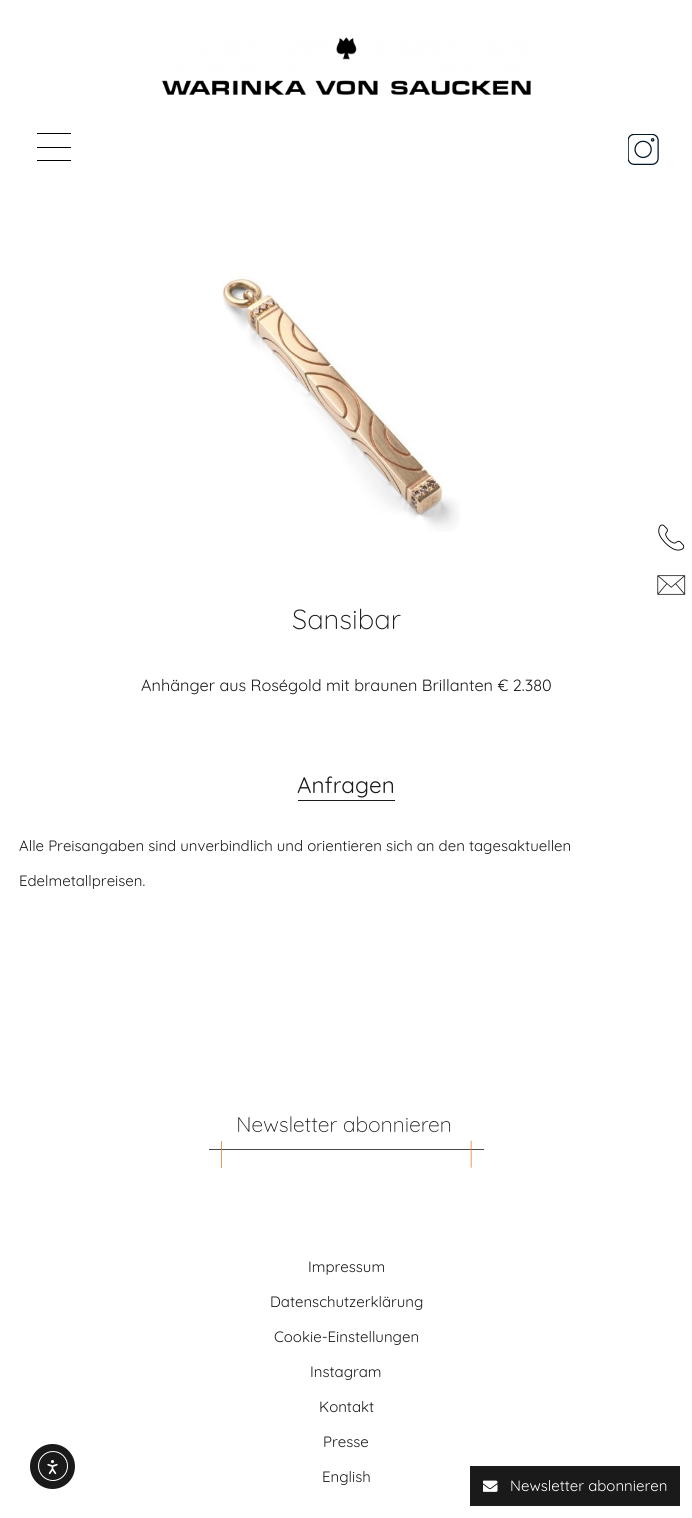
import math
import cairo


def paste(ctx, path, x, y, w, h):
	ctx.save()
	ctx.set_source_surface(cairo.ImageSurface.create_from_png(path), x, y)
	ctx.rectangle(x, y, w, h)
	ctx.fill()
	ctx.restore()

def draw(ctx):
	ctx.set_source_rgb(1, 1, 1)
	ctx.paint()
	paste(ctx, 'media/1.png', 162, 37, 369, 58)
	ctx.set_source_rgb(0, 0, 0)
	ctx.rectangle(37, 133, 34, 1)
	ctx.rectangle(37, 147, 34, 1)
	ctx.rectangle(37, 160, 34, 1)
	ctx.fill()
	paste(ctx, 'media/2.png', 628, 134, 31, 31)
	paste(ctx, 'media/3.png', 222, 273, 238, 259)
	ctx.select_font_face('Quicksand Light')
	ctx.set_font_size(27.5)
	ctx.set_source_rgb(0.102, 0.102, 0.102)
	ctx.move_to(292, 629)
	ctx.show_text('Sansibar')
	ctx.select_font_face('Quicksand')
	ctx.set_font_size(16.25)
	ctx.move_to(141, 691)
	ctx.show_text('Anhänger aus Roségold mit braunen Brillanten € 2.380')
	ctx.rectangle(298, 800, 97, 1)
	ctx.fill()
	ctx.set_font_size(22.5)
	ctx.move_to(297, 793)
	ctx.show_text('Anfragen')
	ctx.set_font_size(15)
	ctx.move_to(19, 851)
	ctx.show_text('Alle Preisangaben sind unverbindlich und orientieren sich an den tagesaktuellen')
	ctx.move_to(19, 886)
	ctx.show_text('Edelmetallpreisen.')
	ctx.new_path()
	ctx.arc(52.5, 1466.5, 22.5, 0, 2 * math.pi)
	ctx.fill()
	ctx.arc(53, 1466, 14.5, 0, 2 * math.pi)
	ctx.set_source_rgb(1, 1, 1)
	ctx.set_line_width(1)
	ctx.stroke()
	paste(ctx, 'media/4.png', 47, 1460, 11, 15)
	paste(ctx, 'media/5.png', 658, 524, 27, 27)
	paste(ctx, 'media/6.png', 657, 575, 29, 20)
	paste(ctx, 'media/7.png', 209, 1116, 275, 52)
	ctx.set_source_rgb(0.102, 0.102, 0.102)
	for x, y, s in [
		(308, 1272, 'Impressum'),
		(270, 1307, 'Datenschutzerklärung'),
		(274, 1342, 'Cookie-Einstellungen'),
		(310, 1377, 'Instagram'),
		(319, 1412, 'Kontakt'),
		(323, 1447, 'Presse'),
		(322, 1482, 'English'),
	]:
		ctx.move_to(x, y)
		ctx.show_text(s)
	ctx.rectangle(470, 1466, 210, 40)
	ctx.fill()
	paste(ctx, 'media/8.png', 483, 1480, 15, 12)
	ctx.set_source_rgb(1, 1, 1)
	ctx.move_to(510, 1491)
	ctx.show_text('Newsletter abonnieren')


surface = cairo.ImageSurface(cairo.FORMAT_RGB24, 692, 1518)
ctx = cairo.Context(surface)
options = cairo.FontOptions()
options.set_hint_metrics(cairo.HINT_METRICS_OFF)
options.set_hint_style(cairo.HINT_STYLE_NONE)
ctx.set_font_options(options)
ctx.set_miter_limit(4)
draw(ctx)
surface.write_to_png('image.png')
